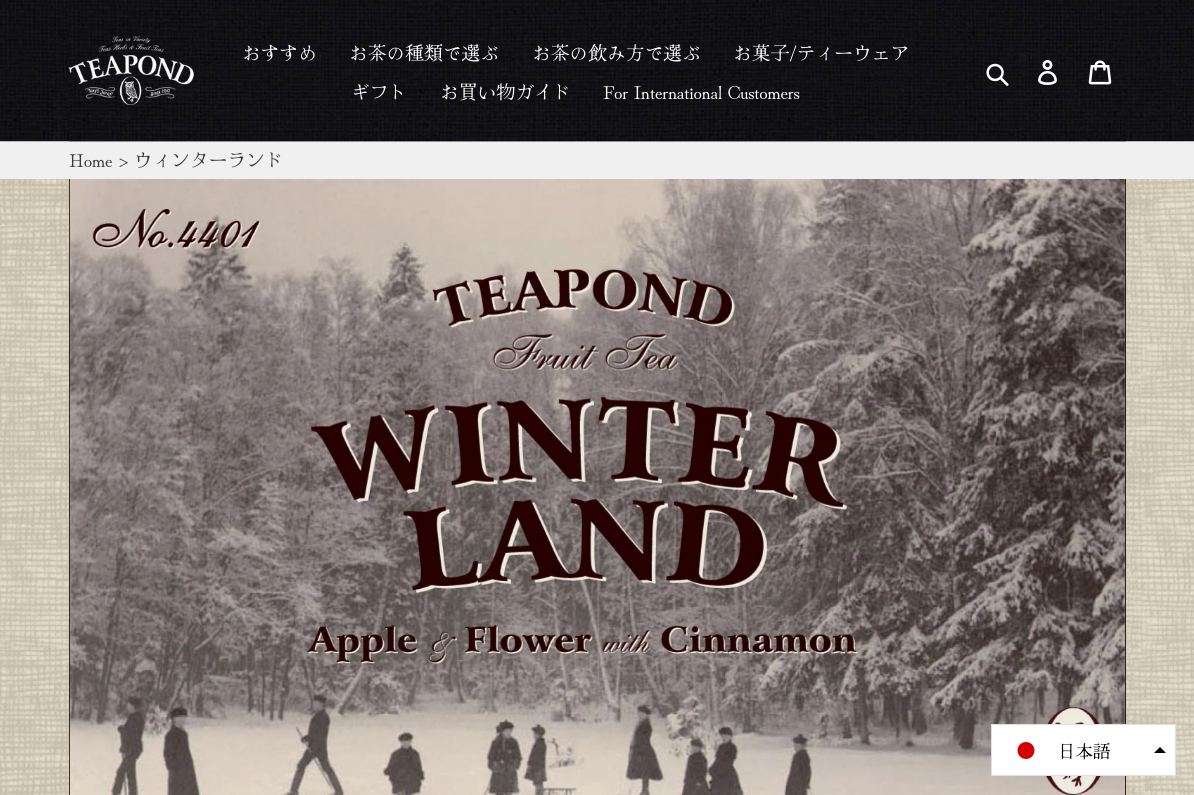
import math
import cairo


def paste(ctx, path, x, y, w, h):
	ctx.save()
	ctx.set_source_surface(cairo.ImageSurface.create_from_png(path), x, y)
	ctx.rectangle(x, y, w, h)
	ctx.fill()
	ctx.restore()

def draw(ctx):
	ctx.set_source_rgb(1, 1, 1)
	ctx.paint()
	ctx.set_source_rgb(0.941, 0.941, 0.941)
	ctx.rectangle(0, 141, 1194, 38)
	ctx.fill()
	paste(ctx, 'media/1.png', 0, 0, 1194, 142)
	paste(ctx, 'media/2.png', 68, 0, 1059, 142)
	paste(ctx, 'media/3.png', 68, 36, 126, 69)
	ctx.select_font_face('Hina Mincho')
	ctx.set_font_size(18.75)
	ctx.set_source_rgb(1, 1, 1)
	for x, y, s in [
		(242, 60, 'おすすめ'),
		(349, 60, 'お茶の種類で選ぶ'),
		(532, 60, 'お茶の飲み方で選ぶ'),
		(733, 60, 'お菓子/ティーウェア'),
		(351, 99, 'ギフト'),
		(440, 99, 'お買い物ガイド'),
		(603, 99, 'For International Customers'),
	]:
		ctx.move_to(x, y)
		ctx.show_text(s)
	paste(ctx, 'media/4.png', 986, 63, 23, 23)
	paste(ctx, 'media/5.png', 1038, 60, 19, 25)
	paste(ctx, 'media/6.png', 1088, 60, 24, 25)
	paste(ctx, 'media/7.png', 0, 179, 1194, 616)
	ctx.set_source_rgb(0.227, 0.227, 0.227)
	ctx.move_to(69, 167)
	ctx.show_text('Home > ウィンターランド')
	ctx.set_source_rgb(0.18, 0.102, 0.082)
	ctx.rectangle(69, 179, 1, 616)
	ctx.fill()
	ctx.rectangle(1125, 179, 1, 616)
	ctx.fill()
	paste(ctx, 'media/8.png', 69, 179, 1057, 616)
	ctx.set_source_rgb(1, 1, 1)
	ctx.rectangle(991.5, 724.5, 184, 51)
	ctx.fill_preserve()
	ctx.set_source_rgb(0.878, 0.878, 0.878)
	ctx.set_line_width(1)
	ctx.stroke()
	ctx.set_source_rgb(0.827, 0, 0)
	ctx.arc(1026, 750.5, 8.5, 0, 2 * math.pi)
	ctx.fill()
	ctx.set_font_size(17.5)
	ctx.set_source_rgb(0, 0, 0)
	ctx.move_to(1058, 758)
	ctx.show_text('日本語')
	ctx.set_fill_rule(cairo.FILL_RULE_EVEN_ODD)
	ctx.new_path()
	ctx.move_to(1154, 753)
	ctx.line_to(1160, 747)
	ctx.line_to(1166, 753)
	ctx.close_path()
	ctx.fill()


surface = cairo.ImageSurface(cairo.FORMAT_RGB24, 1194, 795)
ctx = cairo.Context(surface)
options = cairo.FontOptions()
options.set_hint_metrics(cairo.HINT_METRICS_OFF)
options.set_hint_style(cairo.HINT_STYLE_NONE)
ctx.set_font_options(options)
ctx.set_miter_limit(4)
draw(ctx)
surface.write_to_png('image.png')
